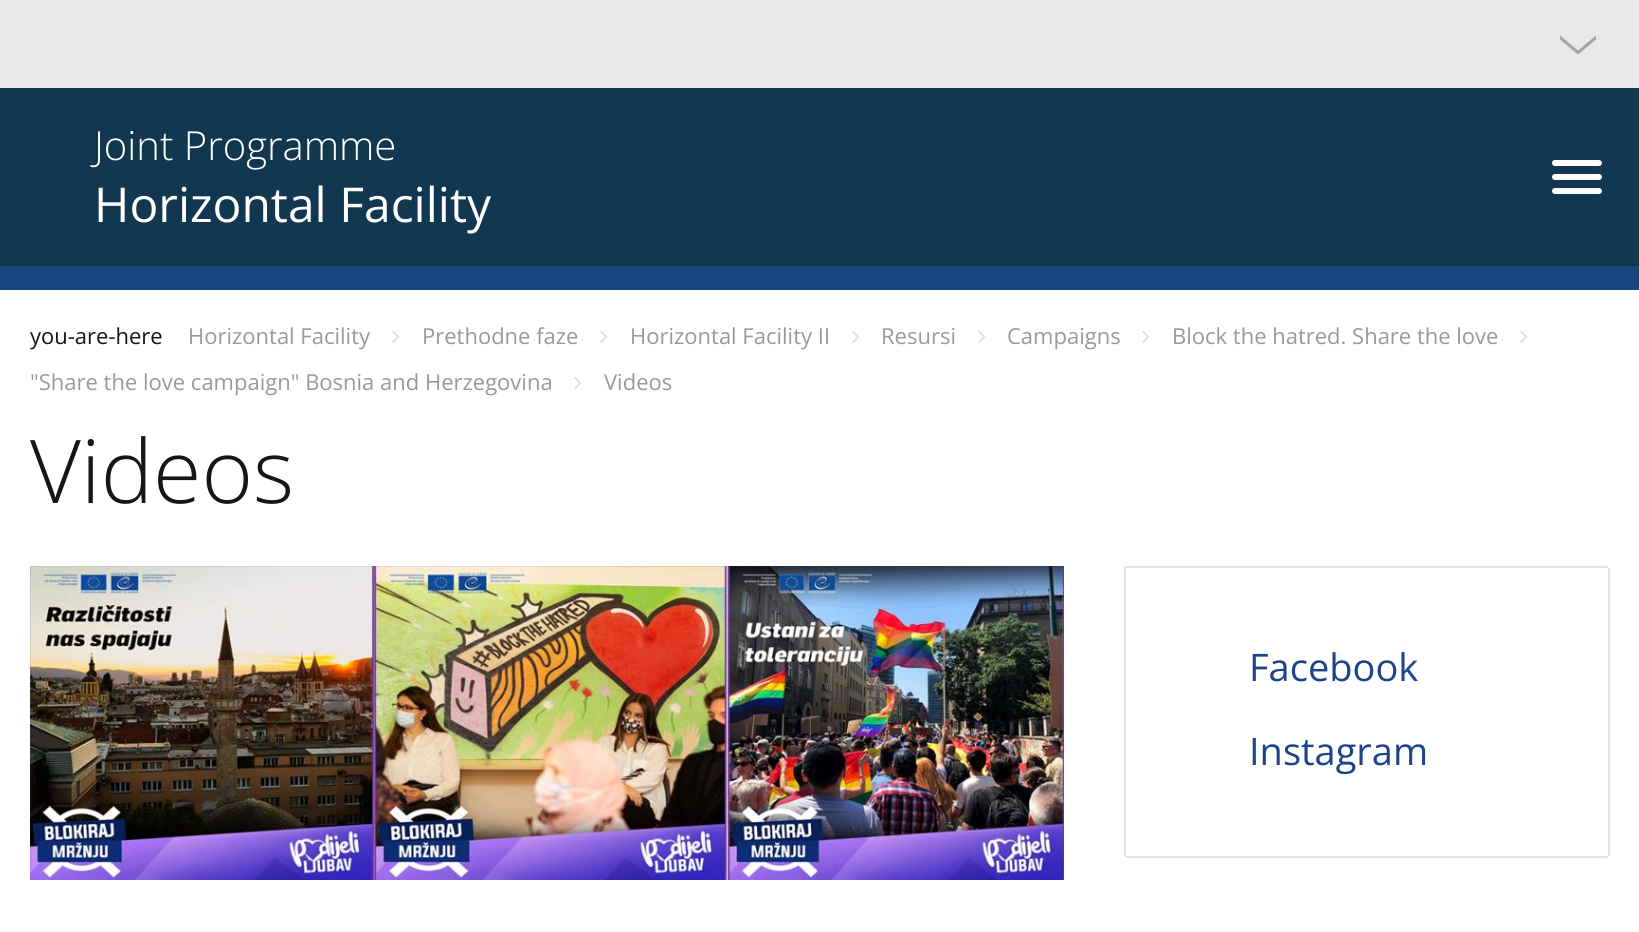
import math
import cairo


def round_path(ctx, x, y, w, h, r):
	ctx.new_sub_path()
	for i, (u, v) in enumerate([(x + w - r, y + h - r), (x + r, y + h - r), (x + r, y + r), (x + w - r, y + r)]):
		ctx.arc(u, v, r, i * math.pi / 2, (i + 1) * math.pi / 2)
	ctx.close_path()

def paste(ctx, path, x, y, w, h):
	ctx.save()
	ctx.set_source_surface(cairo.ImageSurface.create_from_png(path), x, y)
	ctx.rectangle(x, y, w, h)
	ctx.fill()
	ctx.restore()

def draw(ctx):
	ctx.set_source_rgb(1, 1, 1)
	ctx.paint()
	ctx.set_source_rgb(0.91, 0.91, 0.91)
	ctx.rectangle(0, 0, 1639, 88)
	ctx.fill()
	ctx.set_source_rgb(0.647, 0.647, 0.647)
	ctx.new_path()
	ctx.move_to(1560, 35.5)
	ctx.line_to(1578, 50.5)
	ctx.line_to(1578, 54.5)
	ctx.line_to(1560, 39.5)
	ctx.close_path()
	ctx.move_to(1578, 50.5)
	ctx.line_to(1596, 35.5)
	ctx.line_to(1596, 39.5)
	ctx.line_to(1578, 54.5)
	ctx.close_path()
	ctx.fill()
	ctx.set_source_rgb(0.071, 0.216, 0.318)
	ctx.rectangle(0, 88, 1639, 178)
	ctx.fill()
	ctx.set_source_rgb(0.09, 0.271, 0.494)
	ctx.rectangle(0, 266, 1639, 24)
	ctx.fill()
	ctx.select_font_face('Open Sans Light')
	ctx.set_font_size(40)
	ctx.set_source_rgb(1, 1, 1)
	ctx.move_to(94, 160)
	ctx.show_text('Joint Programme')
	ctx.select_font_face('Open Sans')
	ctx.set_font_size(48)
	ctx.move_to(94, 222)
	ctx.show_text('Horizontal Facility')
	round_path(ctx, 1552, 160, 50, 6, 3)
	ctx.fill()
	round_path(ctx, 1552, 174, 50, 6, 3)
	ctx.fill()
	round_path(ctx, 1552, 188, 50, 6, 3)
	ctx.fill()
	ctx.set_font_size(22)
	ctx.set_source_rgb(0.086, 0.086, 0.086)
	ctx.move_to(30, 344)
	ctx.show_text('you-are-here')
	ctx.set_source_rgb(0.6, 0.6, 0.6)
	ctx.move_to(188, 344)
	ctx.show_text('Horizontal Facility')
	paste(ctx, 'media/1.png', 392, 331, 7, 12)
	ctx.move_to(422, 344)
	ctx.show_text('Prethodne faze')
	paste(ctx, 'media/1.png', 600, 331, 7, 12)
	ctx.move_to(630, 344)
	ctx.show_text('Horizontal Facility II')
	paste(ctx, 'media/1.png', 852, 331, 7, 12)
	ctx.move_to(881, 344)
	ctx.show_text('Resursi')
	paste(ctx, 'media/1.png', 978, 331, 7, 12)
	ctx.move_to(1007, 344)
	ctx.show_text('Campaigns')
	paste(ctx, 'media/1.png', 1142, 331, 7, 12)
	ctx.move_to(1172, 344)
	ctx.show_text('Block the hatred. Share the love')
	paste(ctx, 'media/1.png', 1520, 331, 7, 12)
	ctx.move_to(30, 390)
	ctx.show_text('"Share the love campaign" Bosnia and Herzegovina')
	paste(ctx, 'media/1.png', 574, 377, 7, 12)
	ctx.move_to(604, 390)
	ctx.show_text('Videos')
	ctx.select_font_face('Open Sans Light')
	ctx.set_font_size(88)
	ctx.set_source_rgb(0.086, 0.086, 0.086)
	ctx.move_to(30, 503)
	ctx.show_text('Videos')
	paste(ctx, 'media/2.png', 30, 566, 1034, 314)
	ctx.new_path()
	ctx.move_to(1125, 567)
	ctx.line_to(1606, 567)
	ctx.curve_to(1607.5, 567, 1609, 568.5, 1609, 570)
	ctx.line_to(1609, 854)
	ctx.curve_to(1609, 855.5, 1607.5, 857, 1606, 857)
	ctx.line_to(1128, 857)
	ctx.curve_to(1126.5, 857, 1125, 855.5, 1125, 854)
	ctx.close_path()
	ctx.set_source_rgb(0.89, 0.89, 0.89)
	ctx.stroke()
	ctx.select_font_face('Open Sans')
	ctx.set_font_size(38)
	ctx.set_source_rgb(0.114, 0.267, 0.541)
	ctx.move_to(1249, 681)
	ctx.show_text('Facebook')
	ctx.move_to(1249, 765)
	ctx.show_text('Instagram')


surface = cairo.ImageSurface(cairo.FORMAT_RGB24, 1639, 932)
ctx = cairo.Context(surface)
options = cairo.FontOptions()
options.set_hint_metrics(cairo.HINT_METRICS_OFF)
options.set_hint_style(cairo.HINT_STYLE_NONE)
ctx.set_font_options(options)
ctx.set_miter_limit(4)
draw(ctx)
surface.write_to_png('image.png')
